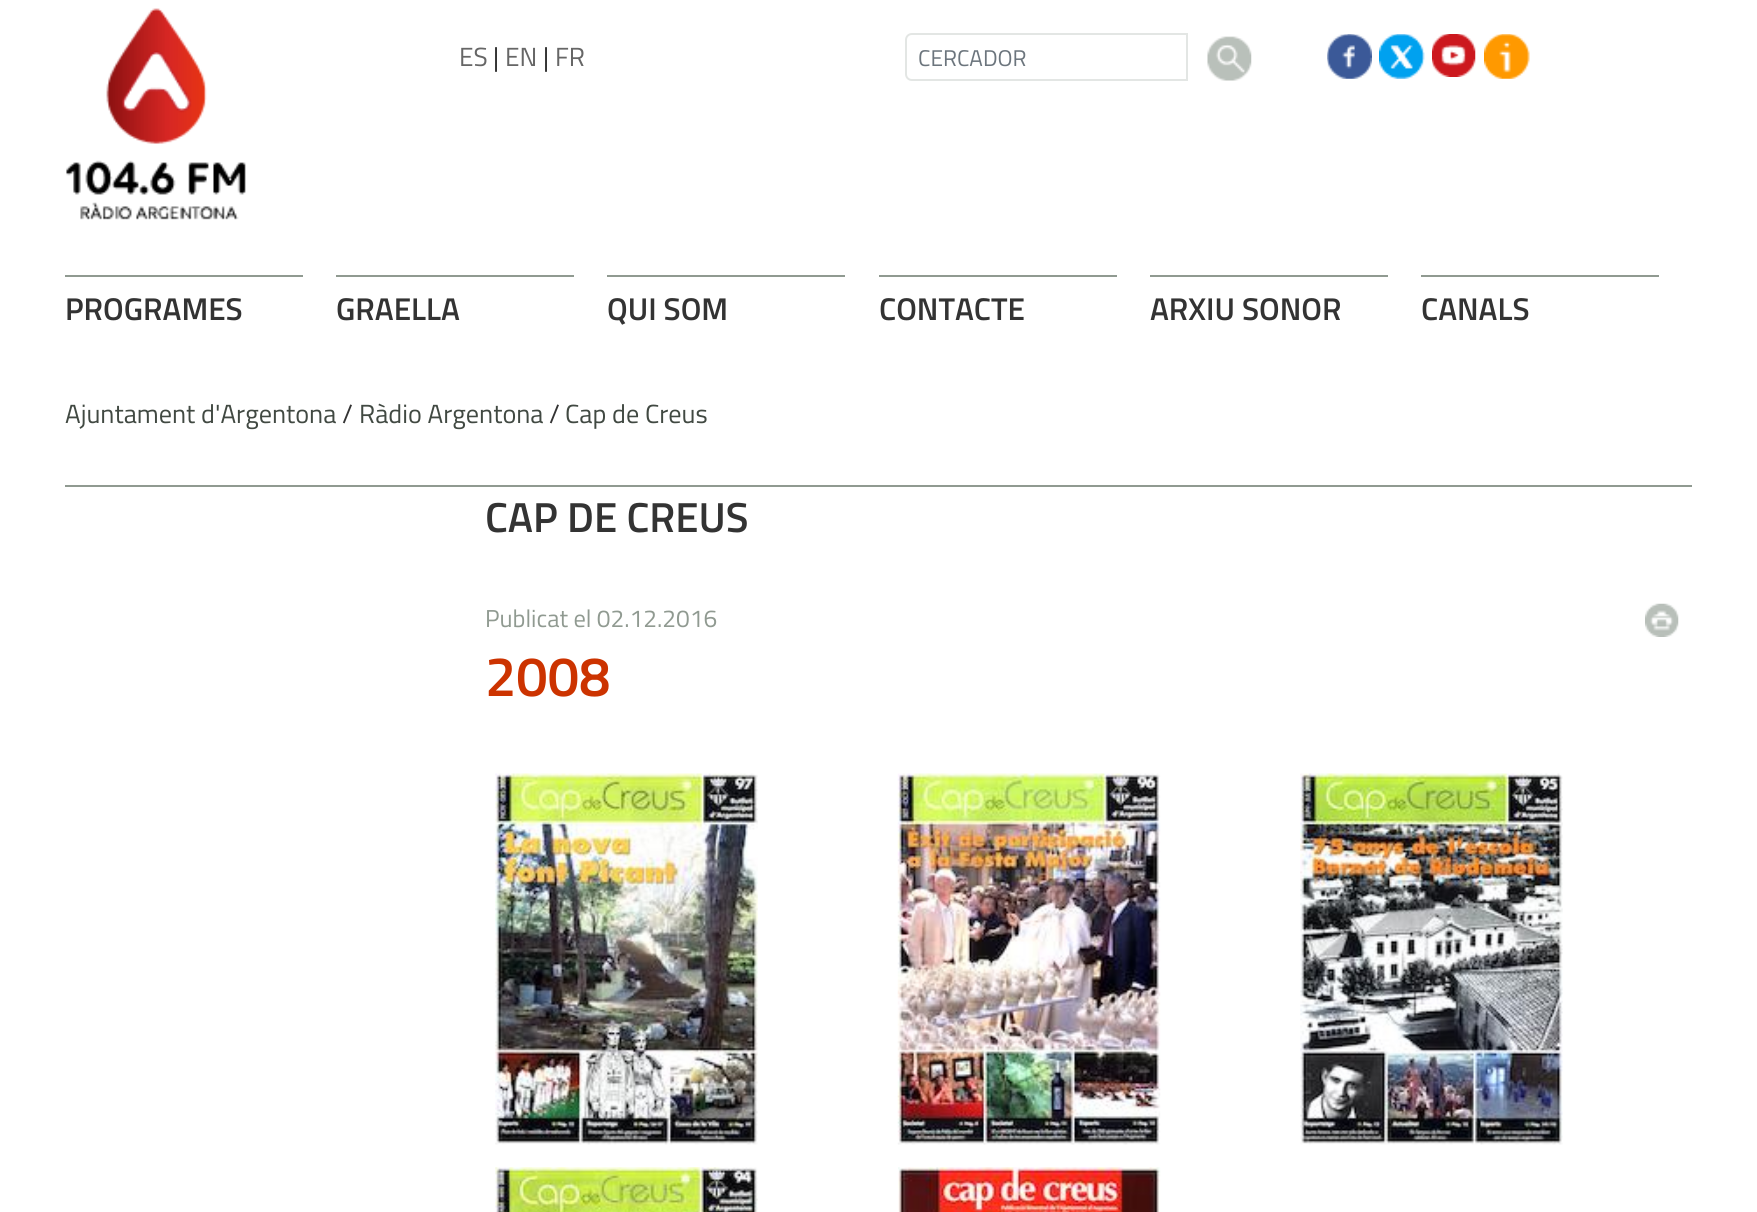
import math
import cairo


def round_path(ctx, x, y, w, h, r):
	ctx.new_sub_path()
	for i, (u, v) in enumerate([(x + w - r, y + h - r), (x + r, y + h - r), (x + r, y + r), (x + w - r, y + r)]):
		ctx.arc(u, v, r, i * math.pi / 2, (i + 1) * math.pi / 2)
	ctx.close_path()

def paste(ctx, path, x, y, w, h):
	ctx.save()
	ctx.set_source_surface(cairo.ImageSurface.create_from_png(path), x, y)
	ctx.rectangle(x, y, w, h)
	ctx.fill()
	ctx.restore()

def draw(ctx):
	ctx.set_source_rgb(1, 1, 1)
	ctx.paint()
	paste(ctx, 'media/1.png', 66, 8, 180, 212)
	ctx.select_font_face('Titillium Web')
	ctx.set_font_size(26.25)
	ctx.set_source_rgb(0.4, 0.4, 0.4)
	ctx.move_to(459, 66)
	ctx.show_text('ES')
	ctx.set_source_rgb(0.2, 0.2, 0.2)
	ctx.move_to(493, 66)
	ctx.show_text('|')
	ctx.set_source_rgb(0.4, 0.4, 0.4)
	ctx.move_to(505, 66)
	ctx.show_text('EN')
	ctx.set_source_rgb(0.2, 0.2, 0.2)
	ctx.move_to(543, 66)
	ctx.show_text('|')
	ctx.set_source_rgb(0.4, 0.4, 0.4)
	ctx.move_to(555, 66)
	ctx.show_text('FR')
	ctx.new_path()
	ctx.move_to(912, 34)
	ctx.line_to(1187, 34)
	ctx.line_to(1187, 80)
	ctx.line_to(912, 80)
	ctx.curve_to(908.5, 80, 906, 77.5, 906, 74)
	ctx.line_to(906, 40)
	ctx.curve_to(906, 36.5, 908.5, 34, 912, 34)
	ctx.close_path()
	ctx.set_source_rgb(0.89, 0.902, 0.894)
	ctx.stroke()
	ctx.set_font_size(22.75)
	ctx.set_source_rgb(0.424, 0.459, 0.49)
	ctx.move_to(918, 66)
	ctx.show_text('CERCADOR')
	paste(ctx, 'media/2.png', 1207, 36, 45, 45)
	paste(ctx, 'media/3.png', 1326, 33, 46, 46)
	round_path(ctx, 1326, 33, 50, 48, 6)
	ctx.set_source_rgb(1, 1, 1)
	ctx.stroke()
	paste(ctx, 'media/4.png', 1379, 33, 46, 46)
	round_path(ctx, 1378, 33, 51, 48, 6)
	ctx.stroke()
	paste(ctx, 'media/5.png', 1432, 34, 44, 43)
	paste(ctx, 'media/6.png', 1484, 34, 46, 45)
	ctx.set_source_rgb(0.565, 0.604, 0.569)
	ctx.rectangle(65, 275, 238, 2)
	ctx.fill()
	ctx.select_font_face('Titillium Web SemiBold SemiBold')
	ctx.set_font_size(31.5)
	ctx.set_source_rgb(0.2, 0.2, 0.2)
	ctx.move_to(65, 320)
	ctx.show_text('PROGRAMES')
	ctx.set_source_rgb(0.565, 0.604, 0.569)
	ctx.rectangle(336, 275, 238, 2)
	ctx.fill()
	ctx.set_source_rgb(0.2, 0.2, 0.2)
	ctx.move_to(336, 320)
	ctx.show_text('GRAELLA')
	ctx.set_source_rgb(0.565, 0.604, 0.569)
	ctx.rectangle(607, 275, 238, 2)
	ctx.fill()
	ctx.set_source_rgb(0.2, 0.2, 0.2)
	ctx.move_to(607, 320)
	ctx.show_text('QUI SOM')
	ctx.set_source_rgb(0.565, 0.604, 0.569)
	ctx.rectangle(879, 275, 238, 2)
	ctx.fill()
	ctx.set_source_rgb(0.2, 0.2, 0.2)
	ctx.move_to(879, 320)
	ctx.show_text('CONTACTE')
	ctx.set_source_rgb(0.565, 0.604, 0.569)
	ctx.rectangle(1150, 275, 238, 2)
	ctx.fill()
	ctx.set_source_rgb(0.2, 0.2, 0.2)
	ctx.move_to(1150, 320)
	ctx.show_text('ARXIU SONOR')
	ctx.set_source_rgb(0.565, 0.604, 0.569)
	ctx.rectangle(1421, 275, 238, 2)
	ctx.fill()
	ctx.set_source_rgb(0.2, 0.2, 0.2)
	ctx.move_to(1421, 320)
	ctx.show_text('CANALS')
	ctx.select_font_face('Titillium Web')
	ctx.set_font_size(26.25)
	ctx.set_source_rgb(0.255, 0.286, 0.259)
	ctx.move_to(65, 423)
	ctx.show_text('Ajuntament d\'Argentona')
	ctx.set_source_rgb(0.2, 0.2, 0.2)
	ctx.move_to(342, 423)
	ctx.show_text('/')
	ctx.set_source_rgb(0.255, 0.286, 0.259)
	ctx.move_to(359, 423)
	ctx.show_text('Ràdio Argentona')
	ctx.set_source_rgb(0.2, 0.2, 0.2)
	ctx.move_to(549, 423)
	ctx.show_text('/')
	ctx.set_source_rgb(0.255, 0.286, 0.259)
	ctx.move_to(565, 423)
	ctx.show_text('Cap de Creus')
	ctx.set_source_rgb(0.565, 0.604, 0.569)
	ctx.rectangle(65, 485, 1627, 2)
	ctx.fill()
	ctx.select_font_face('Titillium Web SemiBold SemiBold')
	ctx.set_font_size(42)
	ctx.set_source_rgb(0.2, 0.2, 0.2)
	ctx.move_to(485, 532)
	ctx.show_text('CAP DE CREUS')
	ctx.select_font_face('Titillium Web')
	ctx.set_font_size(24.5)
	ctx.set_source_rgb(0.565, 0.604, 0.569)
	ctx.move_to(485, 627)
	ctx.show_text('Publicat el 02.12.2016')
	paste(ctx, 'media/7.png', 1645, 603, 34, 34)
	ctx.select_font_face('Titillium Web SemiBold SemiBold')
	ctx.set_font_size(56)
	ctx.set_source_rgb(0.8, 0.2, 0)
	ctx.move_to(485, 696)
	ctx.show_text('2008')
	paste(ctx, 'media/8.png', 495, 773, 263, 372)
	paste(ctx, 'media/9.png', 897, 773, 264, 372)
	paste(ctx, 'media/10.png', 1300, 773, 263, 372)
	paste(ctx, 'media/11.png', 495, 1167, 263, 45)
	paste(ctx, 'media/12.png', 898, 1167, 263, 45)


surface = cairo.ImageSurface(cairo.FORMAT_RGB24, 1757, 1212)
ctx = cairo.Context(surface)
options = cairo.FontOptions()
options.set_hint_metrics(cairo.HINT_METRICS_OFF)
options.set_hint_style(cairo.HINT_STYLE_NONE)
ctx.set_font_options(options)
ctx.set_miter_limit(4)
draw(ctx)
surface.write_to_png('image.png')
